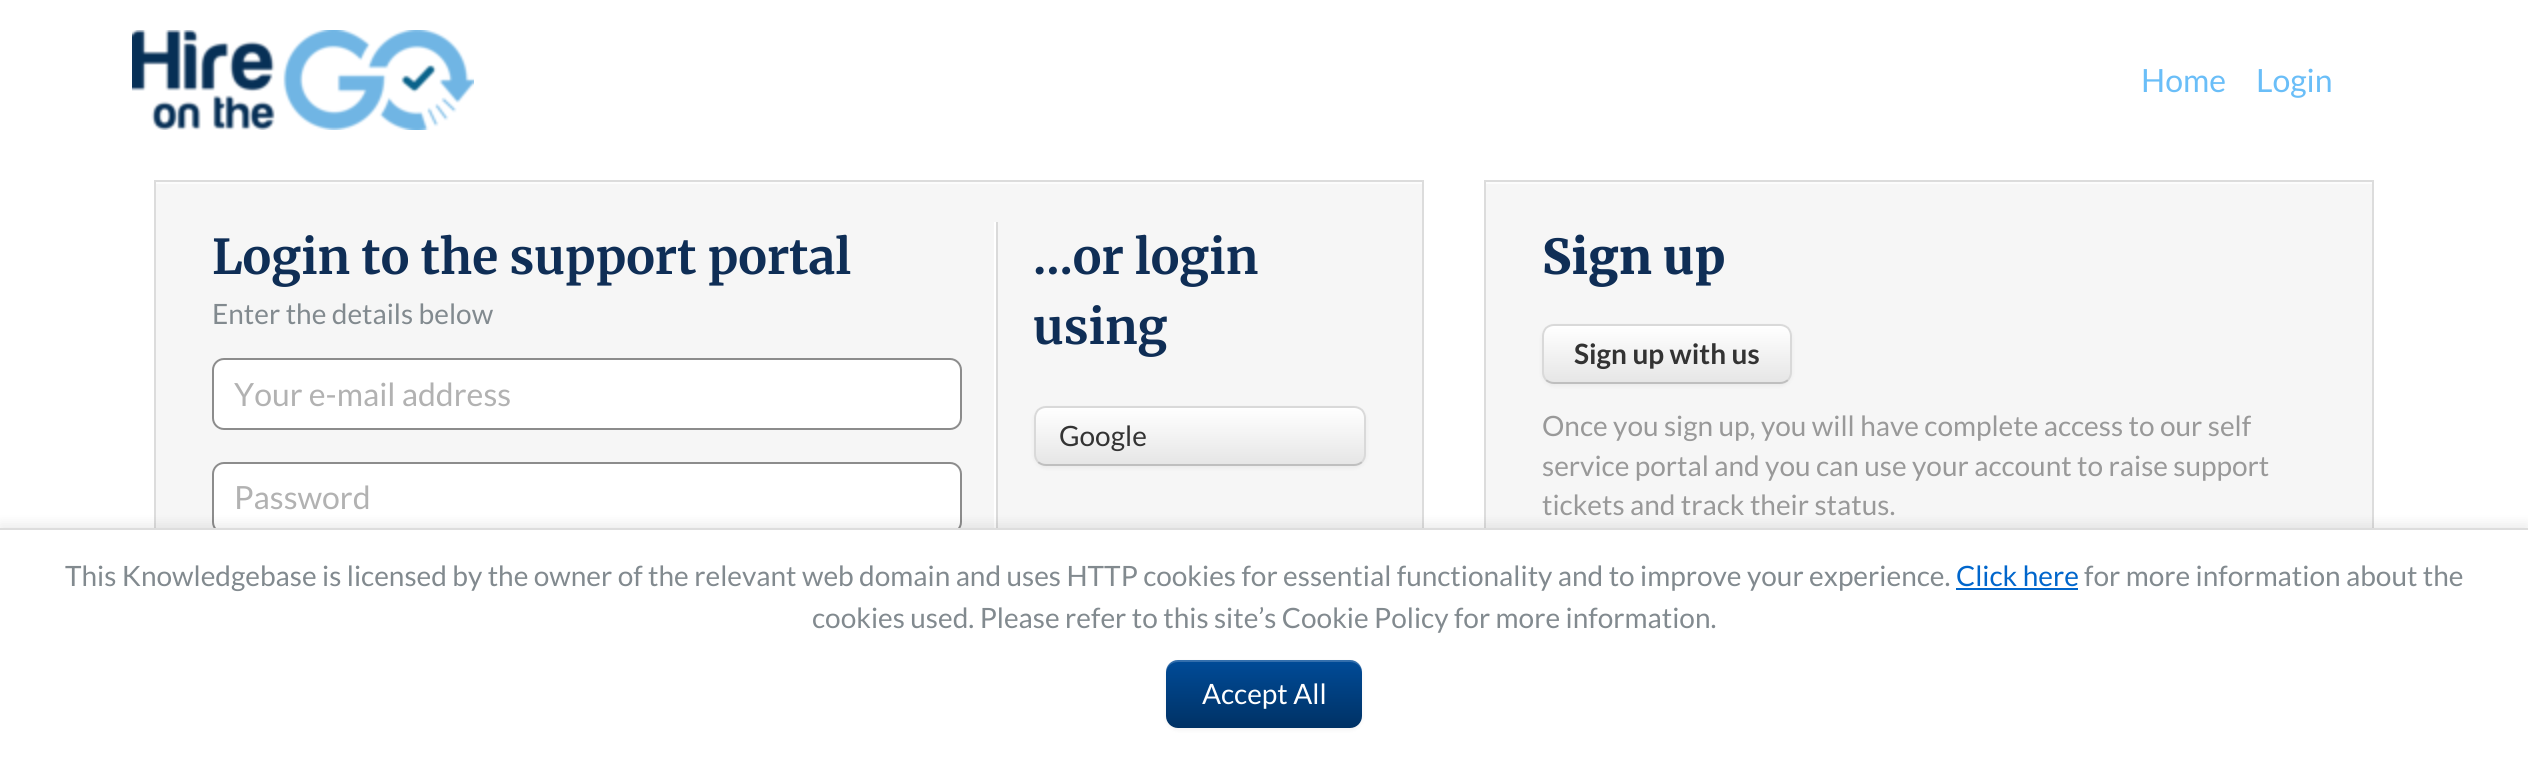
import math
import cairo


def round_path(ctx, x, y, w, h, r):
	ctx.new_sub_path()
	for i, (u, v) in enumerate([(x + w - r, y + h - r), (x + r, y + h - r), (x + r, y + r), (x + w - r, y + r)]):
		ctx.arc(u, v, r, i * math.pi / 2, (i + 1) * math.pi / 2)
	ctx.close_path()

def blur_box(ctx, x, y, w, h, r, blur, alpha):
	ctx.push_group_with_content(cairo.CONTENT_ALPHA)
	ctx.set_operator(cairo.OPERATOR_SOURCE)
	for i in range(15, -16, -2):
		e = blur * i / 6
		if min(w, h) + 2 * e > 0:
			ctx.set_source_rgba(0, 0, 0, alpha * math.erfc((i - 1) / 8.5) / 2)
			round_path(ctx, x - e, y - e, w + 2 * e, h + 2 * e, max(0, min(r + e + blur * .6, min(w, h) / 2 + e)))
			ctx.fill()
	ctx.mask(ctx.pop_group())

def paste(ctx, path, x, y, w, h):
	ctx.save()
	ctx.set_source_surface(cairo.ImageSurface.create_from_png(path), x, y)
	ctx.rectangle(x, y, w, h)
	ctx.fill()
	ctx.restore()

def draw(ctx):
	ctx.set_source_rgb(1, 1, 1)
	ctx.paint()
	paste(ctx, 'media/1.png', 132, 30, 342, 100)
	ctx.select_font_face('Lato')
	ctx.set_font_size(32)
	ctx.set_source_rgb(0.416, 0.745, 0.969)
	ctx.move_to(2141, 92)
	ctx.show_text('Home')
	ctx.move_to(2256, 92)
	ctx.show_text('Login')
	ctx.set_source_rgb(0.961, 0.961, 0.961)
	ctx.rectangle(156, 184, 1266, 344)
	ctx.fill()
	ctx.set_source_rgb(0.988, 0.988, 0.988)
	ctx.rectangle(156, 182, 1266, 2)
	ctx.fill()
	ctx.rectangle(155, 181, 1268, 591)
	ctx.set_source_rgb(0.863, 0.863, 0.863)
	ctx.stroke()
	ctx.select_font_face('Merriweather', cairo.FONT_SLANT_NORMAL, cairo.FONT_WEIGHT_BOLD)
	ctx.set_font_size(48)
	ctx.set_source_rgb(0.059, 0.18, 0.337)
	ctx.move_to(212, 274)
	ctx.show_text('Login to the support portal')
	ctx.select_font_face('Lato')
	ctx.set_font_size(28)
	ctx.set_source_rgb(0.51, 0.541, 0.561)
	ctx.move_to(212, 324)
	ctx.show_text('Enter the details below')
	ctx.set_source_rgb(1, 1, 1)
	round_path(ctx, 213, 359, 748, 70, 11)
	ctx.fill_preserve()
	ctx.set_source_rgb(0.549, 0.549, 0.549)
	ctx.stroke()
	ctx.set_font_size(32)
	ctx.set_source_rgb(0.698, 0.698, 0.698)
	ctx.move_to(234, 406)
	ctx.show_text('Your e-mail address')
	ctx.set_source_rgb(1, 1, 1)
	round_path(ctx, 213, 463, 748, 70, 11)
	ctx.fill_preserve()
	ctx.set_source_rgb(0.549, 0.549, 0.549)
	ctx.stroke()
	ctx.set_source_rgb(0.698, 0.698, 0.698)
	ctx.move_to(234, 509)
	ctx.show_text('Password')
	ctx.set_source_rgb(1, 1, 1)
	ctx.rectangle(994, 222, 2, 306)
	ctx.fill()
	ctx.set_source_rgb(0.855, 0.855, 0.855)
	ctx.rectangle(996, 222, 2, 306)
	ctx.fill()
	ctx.select_font_face('Merriweather', cairo.FONT_SLANT_NORMAL, cairo.FONT_WEIGHT_BOLD)
	ctx.set_font_size(48)
	ctx.set_source_rgb(0.059, 0.18, 0.337)
	ctx.move_to(1033, 274)
	ctx.show_text('...or login')
	ctx.move_to(1033, 344)
	ctx.show_text('using')
	ctx.set_source_rgb(0, 0, 0)
	blur_box(ctx, 1034, 408, 332, 60, 12, 2, 0.05)
	ctx.save()
	round_path(ctx, 1034, 406, 332, 60, 12)
	ctx.clip()
	gradient = cairo.LinearGradient(1200, 408, 1200, 464)
	gradient.add_color_stop_rgba(0, 1, 1, 1, 1)
	gradient.add_color_stop_rgba(1, 0.902, 0.902, 0.902, 1)
	ctx.set_source(gradient)
	ctx.rectangle(1034, 408, 332, 56)
	ctx.fill()
	ctx.restore()
	ctx.new_path()
	ctx.move_to(1362, 462)
	ctx.curve_to(1359.5, 464, 1357, 465, 1354, 465)
	ctx.line_to(1046, 465)
	ctx.curve_to(1043, 465, 1040.5, 464, 1038, 462)
	ctx.set_source_rgb(0.749, 0.749, 0.749)
	ctx.stroke()
	ctx.new_path()
	ctx.move_to(1038, 462)
	ctx.curve_to(1036, 459.5, 1035, 457, 1035, 454)
	ctx.line_to(1035, 418)
	ctx.curve_to(1035, 415, 1036, 412.5, 1038, 410)
	ctx.curve_to(1040.5, 408, 1043, 407, 1046, 407)
	ctx.line_to(1354, 407)
	ctx.curve_to(1357, 407, 1359.5, 408, 1362, 410)
	ctx.curve_to(1364, 412.5, 1365, 415, 1365, 418)
	ctx.line_to(1365, 454)
	ctx.curve_to(1365, 457, 1364, 459.5, 1362, 462)
	ctx.set_source_rgb(0.851, 0.851, 0.851)
	ctx.stroke()
	ctx.select_font_face('Lato')
	ctx.set_font_size(28)
	ctx.set_source_rgb(0.2, 0.2, 0.2)
	ctx.move_to(1059, 446)
	ctx.show_text('Google')
	ctx.set_source_rgb(0.961, 0.961, 0.961)
	ctx.rectangle(1486, 184, 886, 344)
	ctx.fill()
	ctx.set_source_rgb(0.988, 0.988, 0.988)
	ctx.rectangle(1486, 182, 886, 2)
	ctx.fill()
	ctx.rectangle(1485, 181, 888, 408)
	ctx.set_source_rgb(0.863, 0.863, 0.863)
	ctx.stroke()
	ctx.select_font_face('Merriweather Black')
	ctx.set_font_size(48)
	ctx.set_source_rgb(0.059, 0.18, 0.337)
	ctx.move_to(1542, 274)
	ctx.show_text('Sign up')
	ctx.set_source_rgb(0, 0, 0)
	blur_box(ctx, 1542, 326, 250, 60, 12, 2, 0.05)
	ctx.save()
	round_path(ctx, 1542, 324, 250, 60, 12)
	ctx.clip()
	gradient = cairo.LinearGradient(1667, 326, 1667, 382)
	gradient.add_color_stop_rgba(0, 1, 1, 1, 1)
	gradient.add_color_stop_rgba(1, 0.902, 0.902, 0.902, 1)
	ctx.set_source(gradient)
	ctx.rectangle(1542, 326, 250, 56)
	ctx.fill()
	ctx.restore()
	ctx.new_path()
	ctx.move_to(1788, 380)
	ctx.curve_to(1785.5, 382, 1783, 383, 1780, 383)
	ctx.line_to(1554, 383)
	ctx.curve_to(1551, 383, 1548.5, 382, 1546, 380)
	ctx.set_source_rgb(0.749, 0.749, 0.749)
	ctx.stroke()
	ctx.new_path()
	ctx.move_to(1546, 380)
	ctx.curve_to(1544, 377.5, 1543, 375, 1543, 372)
	ctx.line_to(1543, 336)
	ctx.curve_to(1543, 333, 1544, 330.5, 1546, 328)
	ctx.curve_to(1548.5, 326, 1551, 325, 1554, 325)
	ctx.line_to(1780, 325)
	ctx.curve_to(1783, 325, 1785.5, 326, 1788, 328)
	ctx.curve_to(1790, 330.5, 1791, 333, 1791, 336)
	ctx.line_to(1791, 372)
	ctx.curve_to(1791, 375, 1790, 377.5, 1788, 380)
	ctx.set_source_rgb(0.851, 0.851, 0.851)
	ctx.stroke()
	ctx.select_font_face('Lato', cairo.FONT_SLANT_NORMAL, cairo.FONT_WEIGHT_BOLD)
	ctx.set_font_size(28)
	ctx.set_source_rgb(0.2, 0.2, 0.2)
	ctx.move_to(1574, 364)
	ctx.show_text('Sign up with us')
	ctx.select_font_face('Lato')
	ctx.set_source_rgb(0.6, 0.6, 0.6)
	for x, y, s in [
		(1542, 436, 'Once you sign up, you will have complete access to our self'),
		(1542, 476, 'service portal and you can use your account to raise support'),
		(1542, 515, 'tickets and track their status.'),
	]:
		ctx.move_to(x, y)
		ctx.show_text(s)
	ctx.set_source_rgb(0, 0, 0)
	blur_box(ctx, 0, 524, 2528, 244, 0, 6, 0.08)
	ctx.set_source_rgb(1, 1, 1)
	ctx.rectangle(0, 530, 2528, 241)
	ctx.fill()
	ctx.set_source_rgb(0.867, 0.867, 0.867)
	ctx.rectangle(0, 528, 2528, 2)
	ctx.fill()
	ctx.set_source_rgb(0.51, 0.541, 0.561)
	ctx.move_to(65, 586)
	ctx.show_text('This Knowledgebase is licensed by the owner of the relevant web domain and uses HTTP cookies for essential functionality and to improve your experience.')
	ctx.set_source_rgb(0, 0.4, 0.8)
	ctx.move_to(1956, 586)
	ctx.show_text('Click here')
	ctx.rectangle(1956, 588, 122, 2)
	ctx.fill()
	ctx.set_source_rgb(0.51, 0.541, 0.561)
	ctx.move_to(2084, 586)
	ctx.show_text('for more information about the')
	ctx.move_to(812, 628)
	ctx.show_text('cookies used. Please refer to this site’s Cookie Policy for more information.')
	ctx.set_source_rgb(0, 0, 0)
	blur_box(ctx, 1166, 662, 196, 68, 12, 2, 0.05)
	gradient = cairo.LinearGradient(1264, 660, 1264, 728)
	gradient.add_color_stop_rgba(0, 0, 0.294, 0.596, 1)
	gradient.add_color_stop_rgba(1, 0, 0.196, 0.396, 1)
	ctx.set_source(gradient)
	round_path(ctx, 1166, 660, 196, 68, 12)
	ctx.fill()
	ctx.set_source_rgba(1, 1, 1, 0.2)
	ctx.new_path()
	ctx.move_to(1178, 662)
	ctx.line_to(1350, 662)
	ctx.curve_to(1357, 662, 1362, 667, 1362, 674)
	ctx.line_to(1362, 672)
	ctx.curve_to(1362, 665, 1357, 660, 1350, 660)
	ctx.line_to(1178, 660)
	ctx.curve_to(1171, 660, 1166, 665, 1166, 672)
	ctx.line_to(1166, 674)
	ctx.curve_to(1166, 667, 1171, 662, 1178, 662)
	ctx.close_path()
	ctx.fill()
	ctx.set_source_rgb(1, 1, 1)
	ctx.move_to(1202, 704)
	ctx.show_text('Accept All')


surface = cairo.ImageSurface(cairo.FORMAT_RGB24, 2528, 771)
ctx = cairo.Context(surface)
options = cairo.FontOptions()
options.set_hint_metrics(cairo.HINT_METRICS_OFF)
options.set_hint_style(cairo.HINT_STYLE_NONE)
ctx.set_font_options(options)
ctx.set_miter_limit(4)
draw(ctx)
surface.write_to_png('image.png')
